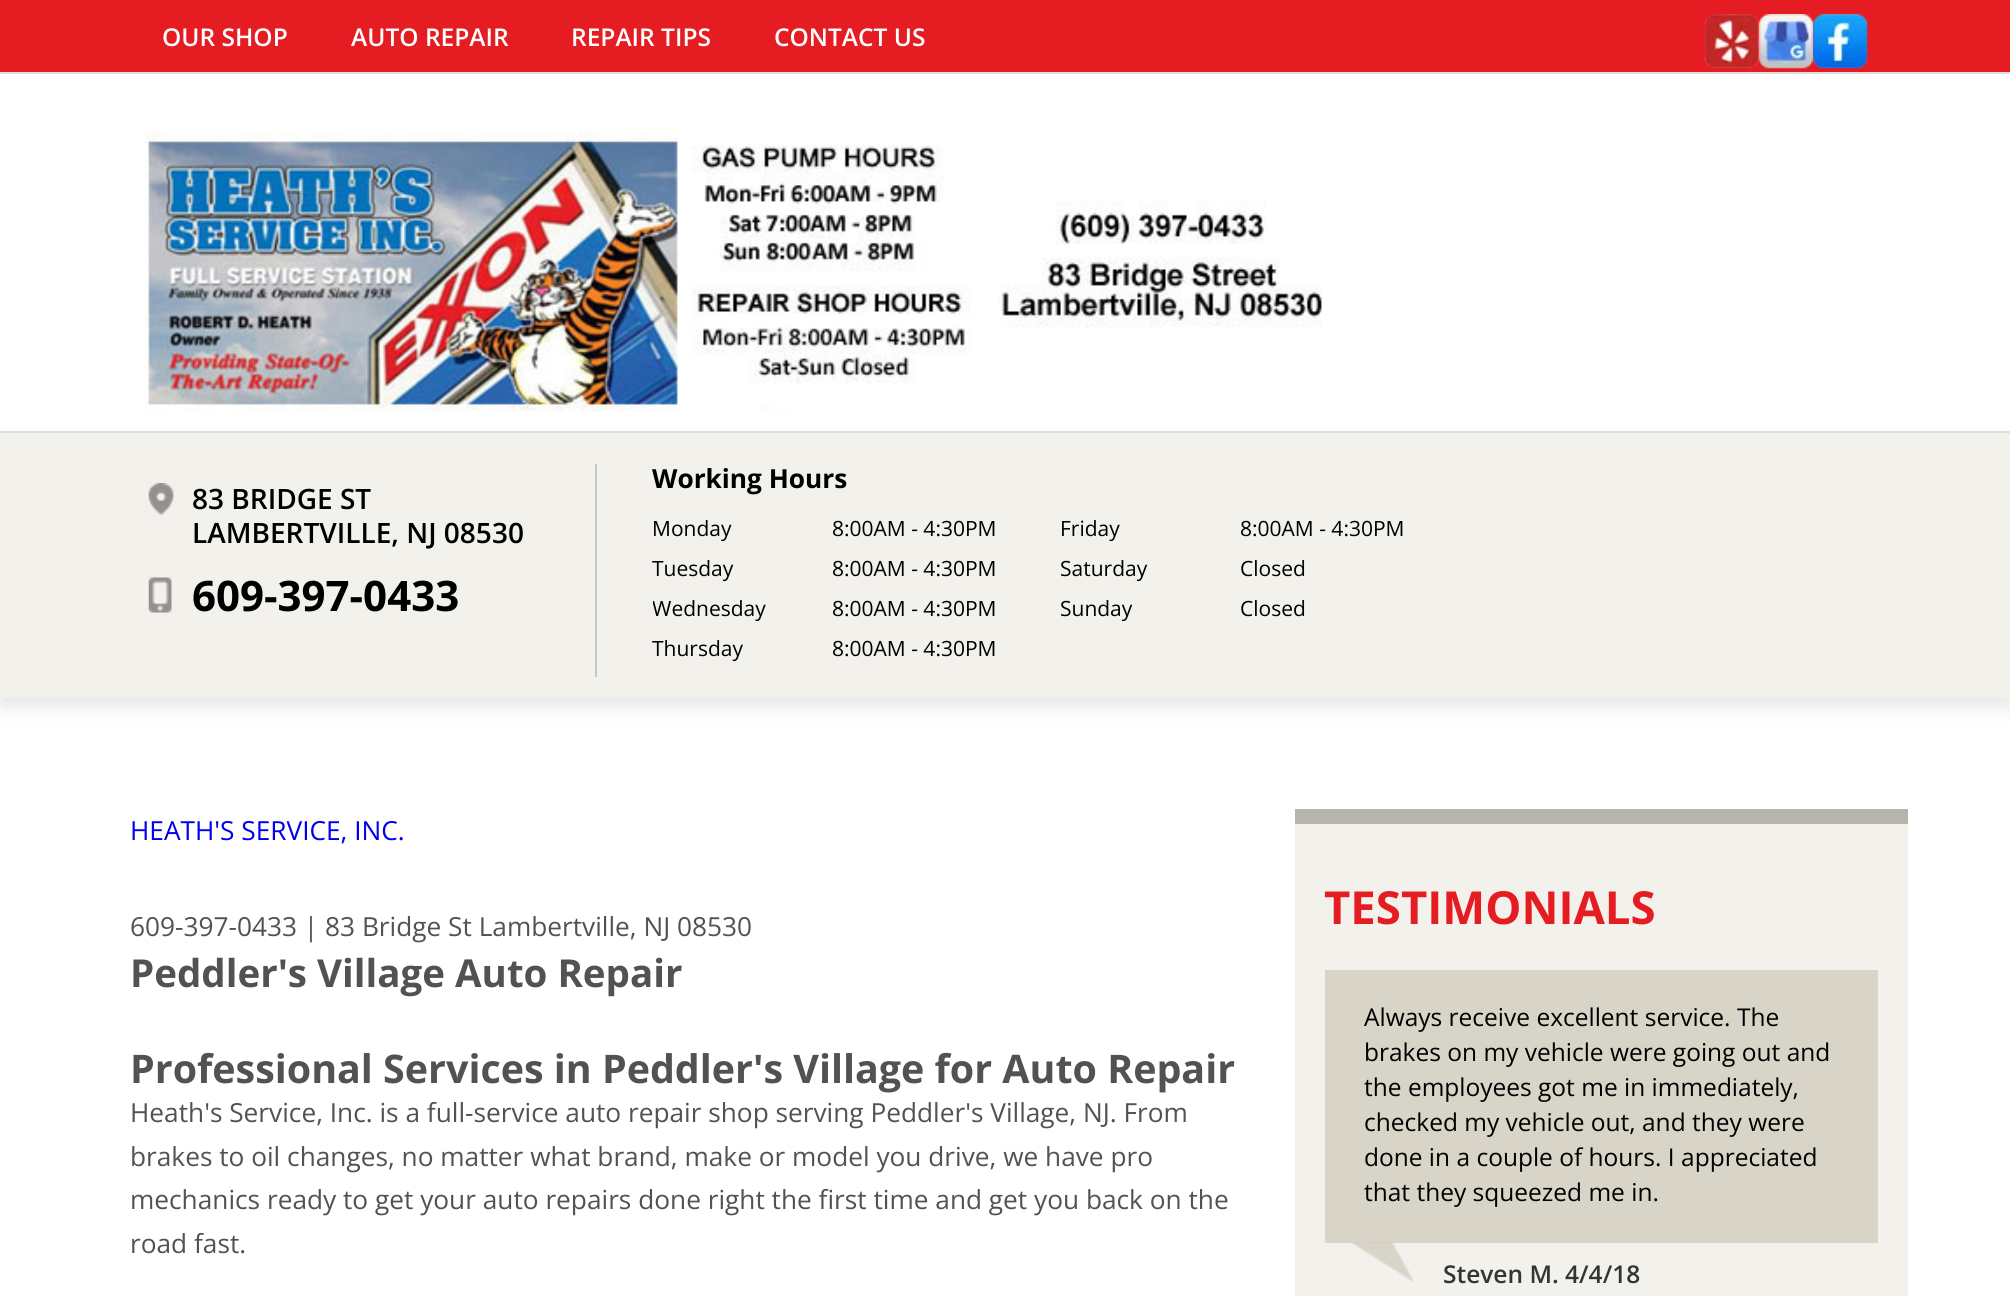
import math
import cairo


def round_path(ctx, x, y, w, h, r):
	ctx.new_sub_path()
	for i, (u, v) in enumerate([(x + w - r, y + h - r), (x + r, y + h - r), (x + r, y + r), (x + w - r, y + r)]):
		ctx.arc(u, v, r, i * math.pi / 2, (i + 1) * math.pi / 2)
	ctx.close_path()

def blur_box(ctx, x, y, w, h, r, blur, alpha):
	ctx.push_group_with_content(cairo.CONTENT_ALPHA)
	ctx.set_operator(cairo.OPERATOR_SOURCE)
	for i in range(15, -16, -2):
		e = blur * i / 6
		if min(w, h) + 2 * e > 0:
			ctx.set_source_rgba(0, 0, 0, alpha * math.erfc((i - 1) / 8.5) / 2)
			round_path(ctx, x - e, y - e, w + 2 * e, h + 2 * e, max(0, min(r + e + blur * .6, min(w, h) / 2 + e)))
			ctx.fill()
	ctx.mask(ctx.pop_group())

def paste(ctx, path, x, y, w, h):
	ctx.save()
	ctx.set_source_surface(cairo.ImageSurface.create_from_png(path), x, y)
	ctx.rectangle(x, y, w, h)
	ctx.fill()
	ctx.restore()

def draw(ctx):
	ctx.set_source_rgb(1, 1, 1)
	ctx.paint()
	ctx.set_source_rgb(0.898, 0.11, 0.133)
	ctx.rectangle(0, 0, 2010, 72)
	ctx.fill()
	ctx.select_font_face('Open Sans SemiBold')
	ctx.set_font_size(24.5)
	ctx.set_source_rgb(1, 1, 1)
	for x, y, s in [
		(162, 46, 'OUR SHOP'),
		(351, 46, 'AUTO REPAIR'),
		(571, 46, 'REPAIR TIPS'),
		(774, 46, 'CONTACT US'),
	]:
		ctx.move_to(x, y)
		ctx.show_text(s)
	paste(ctx, 'media/1.png', 1704, 14, 55, 55)
	paste(ctx, 'media/2.png', 1758, 14, 55, 55)
	paste(ctx, 'media/3.png', 1813, 14, 55, 55)
	ctx.set_source_rgb(0, 0, 0)
	blur_box(ctx, 0, 441, 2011, 266, 0, 9, 0.1)
	ctx.set_source_rgb(1, 1, 1)
	ctx.rectangle(8, 429, 1995, 2)
	ctx.fill()
	ctx.set_source_rgb(0.863, 0.863, 0.863)
	ctx.rectangle(0, 72, 2010, 2)
	ctx.rectangle(0, 431, 2010, 2)
	ctx.fill()
	paste(ctx, 'media/4.png', 145, 131, 1177, 281)
	ctx.set_source_rgb(0.953, 0.945, 0.922)
	ctx.rectangle(0, 433, 2010, 265)
	ctx.fill()
	paste(ctx, 'media/5.png', 148, 483, 26, 32)
	ctx.set_font_size(28)
	ctx.set_source_rgb(0, 0, 0)
	ctx.move_to(192, 509)
	ctx.show_text('83 BRIDGE ST')
	ctx.move_to(192, 543)
	ctx.show_text('LAMBERTVILLE, NJ 08530')
	paste(ctx, 'media/6.png', 148, 577, 24, 36)
	ctx.select_font_face('Open Sans', cairo.FONT_SLANT_NORMAL, cairo.FONT_WEIGHT_BOLD)
	ctx.set_font_size(42)
	ctx.move_to(192, 611)
	ctx.show_text('609-397-0433')
	ctx.set_source_rgb(0.776, 0.776, 0.776)
	ctx.rectangle(595, 464, 2, 213)
	ctx.fill()
	ctx.set_font_size(26.25)
	ctx.set_source_rgb(0, 0, 0)
	ctx.move_to(652, 488)
	ctx.show_text('Working Hours')
	ctx.select_font_face('Open Sans')
	ctx.set_font_size(21)
	for x, y, s in [
		(652, 536, 'Monday'),
		(832, 536, '8:00AM - 4:30PM'),
		(652, 576, 'Tuesday'),
		(832, 576, '8:00AM - 4:30PM'),
	]:
		ctx.move_to(x, y)
		ctx.show_text(s)
	ctx.save()
	ctx.rectangle(653, 597, 343, 40)
	ctx.clip()
	ctx.move_to(652, 616)
	ctx.show_text('Wednesday')
	ctx.restore()
	for x, y, s in [
		(832, 616, '8:00AM - 4:30PM'),
		(652, 656, 'Thursday'),
		(832, 656, '8:00AM - 4:30PM'),
		(1060, 536, 'Friday'),
		(1240, 536, '8:00AM - 4:30PM'),
		(1060, 576, 'Saturday'),
		(1240, 576, 'Closed'),
		(1060, 616, 'Sunday'),
		(1240, 616, 'Closed'),
	]:
		ctx.move_to(x, y)
		ctx.show_text(s)
	ctx.set_font_size(26.25)
	ctx.set_source_rgb(0, 0, 0.933)
	ctx.move_to(130, 840)
	ctx.show_text('HEATH\'S SERVICE, INC.')
	ctx.set_source_rgb(0.322, 0.322, 0.322)
	ctx.move_to(130, 936)
	ctx.show_text('609-397-0433 | 83 Bridge St Lambertville, NJ 08530')
	ctx.select_font_face('Open Sans', cairo.FONT_SLANT_NORMAL, cairo.FONT_WEIGHT_BOLD)
	ctx.set_font_size(38.5)
	ctx.move_to(130, 987)
	ctx.show_text('Peddler\'s Village Auto Repair')
	ctx.set_font_size(39.4)
	ctx.move_to(130, 1083)
	ctx.show_text('Professional Services in Peddler\'s Village for Auto Repair')
	ctx.select_font_face('Open Sans')
	ctx.set_font_size(26.25)
	for x, y, s in [
		(130, 1122, 'Heath\'s Service, Inc. is a full-service auto repair shop serving Peddler\'s Village, NJ. From'),
		(130, 1166, 'brakes to oil changes, no matter what brand, make or model you drive, we have pro'),
		(130, 1209, 'mechanics ready to get your auto repairs done right the first time and get you back on the'),
		(130, 1253, 'road fast.'),
	]:
		ctx.move_to(x, y)
		ctx.show_text(s)
	ctx.set_source_rgb(0.953, 0.945, 0.922)
	ctx.rectangle(1295, 824, 613, 472)
	ctx.fill()
	ctx.set_source_rgb(0.714, 0.71, 0.671)
	ctx.rectangle(1295, 809, 613, 15)
	ctx.fill()
	ctx.select_font_face('Open Sans', cairo.FONT_SLANT_NORMAL, cairo.FONT_WEIGHT_BOLD)
	ctx.set_font_size(45.5)
	ctx.set_source_rgb(0.898, 0.11, 0.133)
	ctx.move_to(1324, 924)
	ctx.show_text('TESTIMONIALS')
	ctx.set_source_rgb(0.847, 0.831, 0.784)
	ctx.rectangle(1325, 970, 553, 273)
	ctx.fill()
	ctx.select_font_face('Open Sans')
	ctx.set_font_size(24.5)
	ctx.set_source_rgb(0, 0, 0)
	for x, y, s in [
		(1364, 1026, 'Always receive excellent service. The'),
		(1364, 1061, 'brakes on my vehicle were going out and'),
		(1364, 1096, 'the employees got me in immediately,'),
		(1364, 1131, 'checked my vehicle out, and they were'),
		(1364, 1166, 'done in a couple of hours. I appreciated'),
		(1364, 1201, 'that they squeezed me in.'),
	]:
		ctx.move_to(x, y)
		ctx.show_text(s)
	paste(ctx, 'media/7.png', 1351, 1242, 63, 41)
	ctx.select_font_face('Open Sans SemiBold')
	ctx.set_source_rgb(0.204, 0.204, 0.204)
	ctx.move_to(1443, 1283)
	ctx.show_text('Steven M. 4/4/18')


surface = cairo.ImageSurface(cairo.FORMAT_RGB24, 2010, 1296)
ctx = cairo.Context(surface)
options = cairo.FontOptions()
options.set_hint_metrics(cairo.HINT_METRICS_OFF)
options.set_hint_style(cairo.HINT_STYLE_NONE)
ctx.set_font_options(options)
ctx.set_miter_limit(4)
draw(ctx)
surface.write_to_png('image.png')
